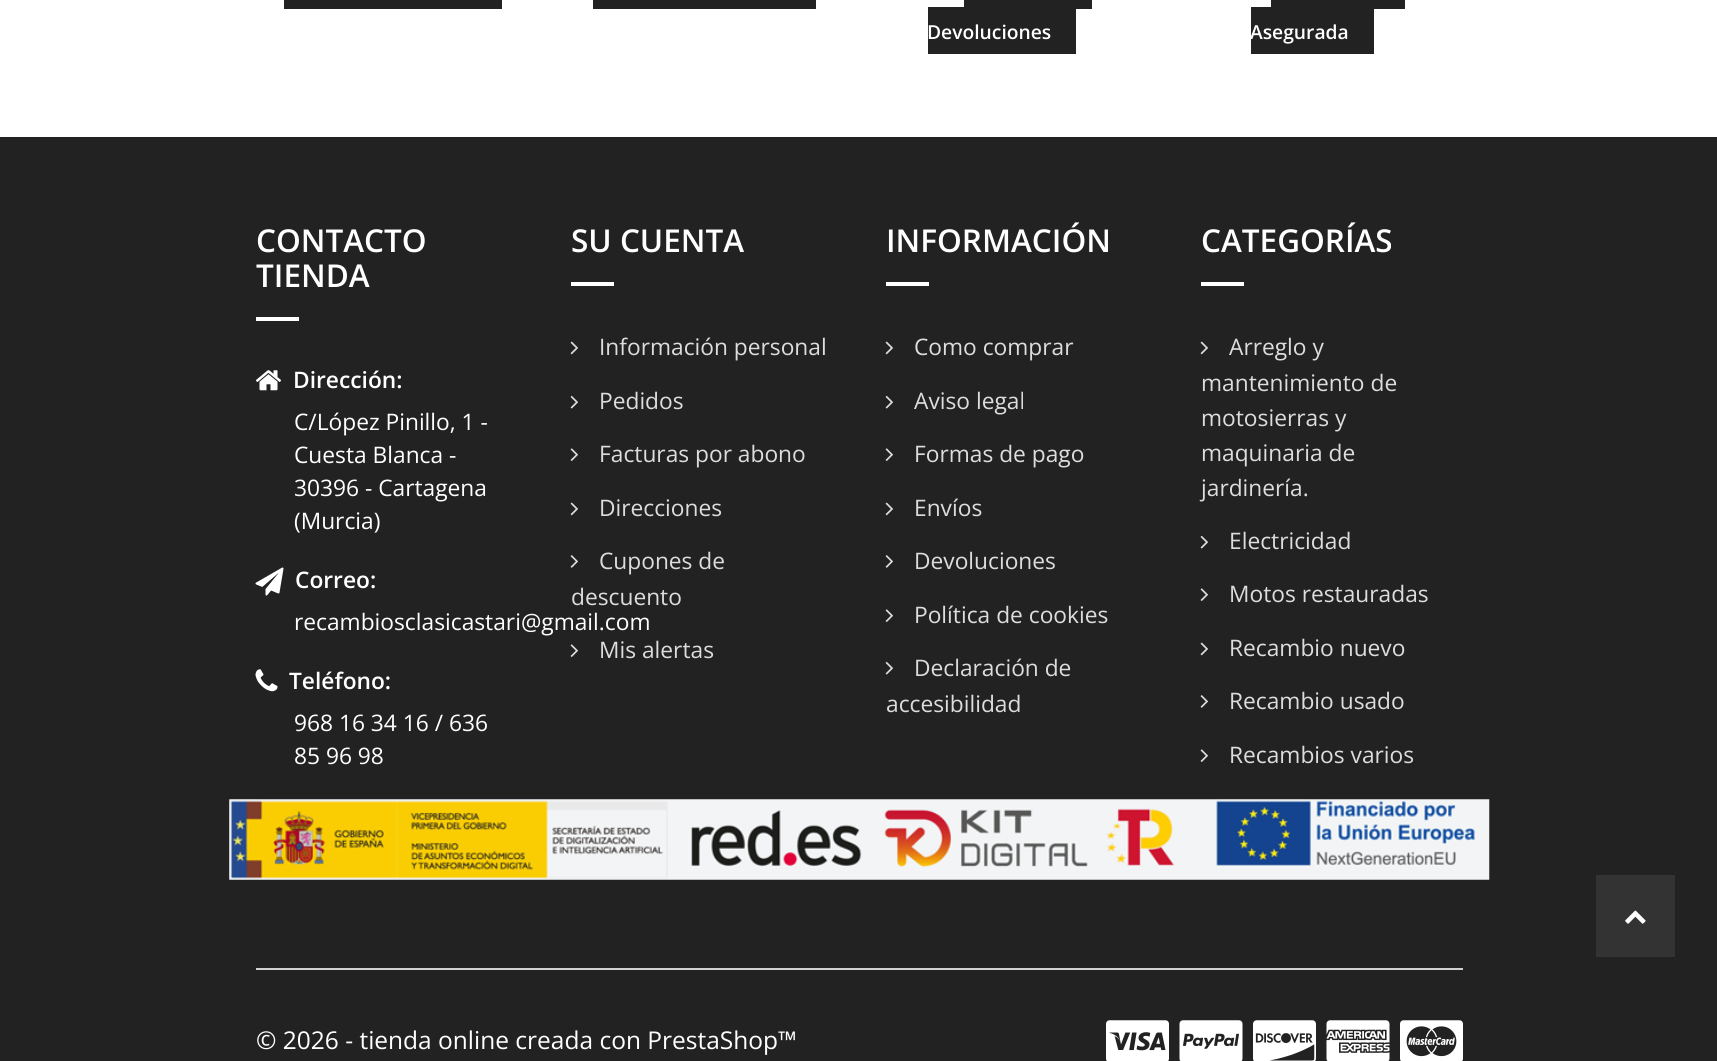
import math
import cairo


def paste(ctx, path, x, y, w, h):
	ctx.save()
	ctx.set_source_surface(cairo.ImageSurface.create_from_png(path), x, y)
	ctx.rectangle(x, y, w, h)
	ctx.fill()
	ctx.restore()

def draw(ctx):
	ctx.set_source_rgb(0.133, 0.133, 0.133)
	ctx.paint()
	ctx.set_source_rgb(1, 1, 1)
	ctx.rectangle(0, 0, 1717, 137)
	ctx.fill()
	ctx.set_source_rgb(0.133, 0.133, 0.133)
	ctx.rectangle(284, 0, 218, 9)
	ctx.rectangle(593, 0, 223, 9)
	ctx.rectangle(964, 0, 128, 9)
	ctx.rectangle(928, 7, 148, 47)
	ctx.fill()
	ctx.select_font_face('Open Sans SemiBold')
	ctx.set_font_size(19.25)
	ctx.set_source_rgb(1, 1, 1)
	ctx.move_to(927, 39)
	ctx.show_text('Devoluciones')
	ctx.set_source_rgb(0.133, 0.133, 0.133)
	ctx.rectangle(1271, 0, 134, 9)
	ctx.fill()
	ctx.rectangle(1251, 7, 123, 47)
	ctx.fill()
	ctx.set_source_rgb(1, 1, 1)
	ctx.move_to(1250, 39)
	ctx.show_text('Asegurada')
	ctx.set_font_size(31.5)
	ctx.move_to(256, 252)
	ctx.show_text('CONTACTO')
	ctx.move_to(256, 287)
	ctx.show_text('TIENDA')
	ctx.rectangle(256, 317, 43, 4)
	ctx.fill()
	paste(ctx, 'media/1.png', 255, 370, 27, 21)
	ctx.set_font_size(22.75)
	ctx.move_to(293, 388)
	ctx.show_text('Dirección:')
	ctx.select_font_face('Open Sans')
	for x, y, s in [
		(294, 430, 'C/López Pinillo, 1 -'),
		(294, 463, 'Cuesta Blanca -'),
		(294, 496, '30396 - Cartagena'),
		(294, 529, '(Murcia)'),
	]:
		ctx.move_to(x, y)
		ctx.show_text(s)
	paste(ctx, 'media/2.png', 255, 567, 29, 29)
	ctx.select_font_face('Open Sans SemiBold')
	ctx.move_to(295, 588)
	ctx.show_text('Correo:')
	ctx.select_font_face('Open Sans')
	ctx.move_to(294, 630)
	ctx.show_text('recambiosclasicastari@gmail.com')
	paste(ctx, 'media/3.png', 255, 669, 23, 23)
	ctx.select_font_face('Open Sans SemiBold')
	ctx.move_to(289, 689)
	ctx.show_text('Teléfono:')
	ctx.select_font_face('Open Sans')
	ctx.move_to(294, 731)
	ctx.show_text('968 16 34 16 / 636')
	ctx.move_to(294, 764)
	ctx.show_text('85 96 98')
	ctx.select_font_face('Open Sans SemiBold')
	ctx.set_font_size(31.5)
	ctx.move_to(571, 252)
	ctx.show_text('SU CUENTA')
	ctx.rectangle(571, 282, 43, 4)
	ctx.fill()
	paste(ctx, 'media/4.png', 570, 341, 8, 14)
	ctx.select_font_face('Open Sans')
	ctx.set_font_size(22.75)
	ctx.set_source_rgb(0.867, 0.867, 0.867)
	ctx.move_to(599, 355)
	ctx.show_text('Información personal')
	paste(ctx, 'media/5.png', 570, 395, 8, 14)
	ctx.move_to(599, 409)
	ctx.show_text('Pedidos')
	paste(ctx, 'media/6.png', 570, 448, 8, 13)
	ctx.move_to(599, 462)
	ctx.show_text('Facturas por abono')
	paste(ctx, 'media/4.png', 570, 502, 8, 14)
	ctx.move_to(599, 516)
	ctx.show_text('Direcciones')
	paste(ctx, 'media/7.png', 570, 555, 8, 13)
	ctx.move_to(599, 569)
	ctx.show_text('Cupones de')
	ctx.move_to(571, 605)
	ctx.show_text('descuento')
	paste(ctx, 'media/6.png', 570, 644, 8, 13)
	ctx.move_to(599, 658)
	ctx.show_text('Mis alertas')
	ctx.select_font_face('Open Sans SemiBold')
	ctx.set_font_size(31.5)
	ctx.set_source_rgb(1, 1, 1)
	ctx.move_to(886, 252)
	ctx.show_text('INFORMACIÓN')
	ctx.rectangle(886, 282, 43, 4)
	ctx.fill()
	paste(ctx, 'media/4.png', 885, 341, 8, 14)
	ctx.select_font_face('Open Sans')
	ctx.set_font_size(22.75)
	ctx.set_source_rgb(0.867, 0.867, 0.867)
	ctx.move_to(914, 355)
	ctx.show_text('Como comprar')
	paste(ctx, 'media/5.png', 885, 395, 8, 14)
	ctx.move_to(914, 409)
	ctx.show_text('Aviso legal')
	paste(ctx, 'media/6.png', 885, 448, 8, 13)
	ctx.move_to(914, 462)
	ctx.show_text('Formas de pago')
	paste(ctx, 'media/4.png', 885, 502, 8, 14)
	ctx.move_to(914, 516)
	ctx.show_text('Envíos')
	paste(ctx, 'media/7.png', 885, 555, 8, 13)
	ctx.move_to(914, 569)
	ctx.show_text('Devoluciones')
	paste(ctx, 'media/6.png', 885, 609, 8, 13)
	ctx.move_to(914, 623)
	ctx.show_text('Política de cookies')
	paste(ctx, 'media/5.png', 885, 661, 8, 14)
	ctx.move_to(914, 676)
	ctx.show_text('Declaración de')
	ctx.move_to(886, 712)
	ctx.show_text('accesibilidad')
	ctx.select_font_face('Open Sans SemiBold')
	ctx.set_font_size(31.5)
	ctx.set_source_rgb(1, 1, 1)
	ctx.move_to(1201, 252)
	ctx.show_text('CATEGORÍAS')
	ctx.rectangle(1201, 282, 43, 4)
	ctx.fill()
	paste(ctx, 'media/4.png', 1200, 341, 8, 14)
	ctx.select_font_face('Open Sans')
	ctx.set_font_size(22.75)
	ctx.set_source_rgb(0.867, 0.867, 0.867)
	for x, y, s in [
		(1229, 355, 'Arreglo y'),
		(1201, 391, 'mantenimiento de'),
		(1201, 426, 'motosierras y'),
		(1201, 461, 'maquinaria de'),
		(1201, 496, 'jardinería.'),
	]:
		ctx.move_to(x, y)
		ctx.show_text(s)
	paste(ctx, 'media/5.png', 1200, 535, 8, 14)
	ctx.move_to(1229, 549)
	ctx.show_text('Electricidad')
	paste(ctx, 'media/6.png', 1200, 588, 8, 13)
	ctx.move_to(1229, 602)
	ctx.show_text('Motos restauradas')
	paste(ctx, 'media/4.png', 1200, 642, 8, 14)
	ctx.move_to(1229, 656)
	ctx.show_text('Recambio nuevo')
	paste(ctx, 'media/7.png', 1200, 695, 8, 13)
	ctx.move_to(1229, 709)
	ctx.show_text('Recambio usado')
	paste(ctx, 'media/6.png', 1200, 749, 8, 13)
	ctx.move_to(1229, 763)
	ctx.show_text('Recambios varios')
	ctx.set_source_rgb(0.2, 0.2, 0.2)
	ctx.rectangle(1596, 875, 79, 82)
	ctx.fill()
	paste(ctx, 'media/8.png', 1625, 910, 21, 14)
	paste(ctx, 'media/9.png', 229, 799, 1261, 81)
	ctx.set_source_rgb(0.82, 0.82, 0.82)
	ctx.rectangle(256, 968, 1207, 2)
	ctx.fill()
	ctx.set_font_size(24.5)
	ctx.set_source_rgb(1, 1, 1)
	ctx.move_to(256, 1049)
	ctx.show_text('© 2026 - tienda online creada con PrestaShop™')
	paste(ctx, 'media/10.png', 1106, 1020, 63, 41)
	paste(ctx, 'media/11.png', 1179, 1020, 64, 41)
	paste(ctx, 'media/12.png', 1253, 1020, 63, 41)
	paste(ctx, 'media/13.png', 1326, 1020, 64, 41)
	paste(ctx, 'media/14.png', 1400, 1020, 63, 41)


surface = cairo.ImageSurface(cairo.FORMAT_RGB24, 1717, 1061)
ctx = cairo.Context(surface)
options = cairo.FontOptions()
options.set_hint_metrics(cairo.HINT_METRICS_OFF)
options.set_hint_style(cairo.HINT_STYLE_NONE)
ctx.set_font_options(options)
ctx.set_miter_limit(4)
draw(ctx)
surface.write_to_png('image.png')
